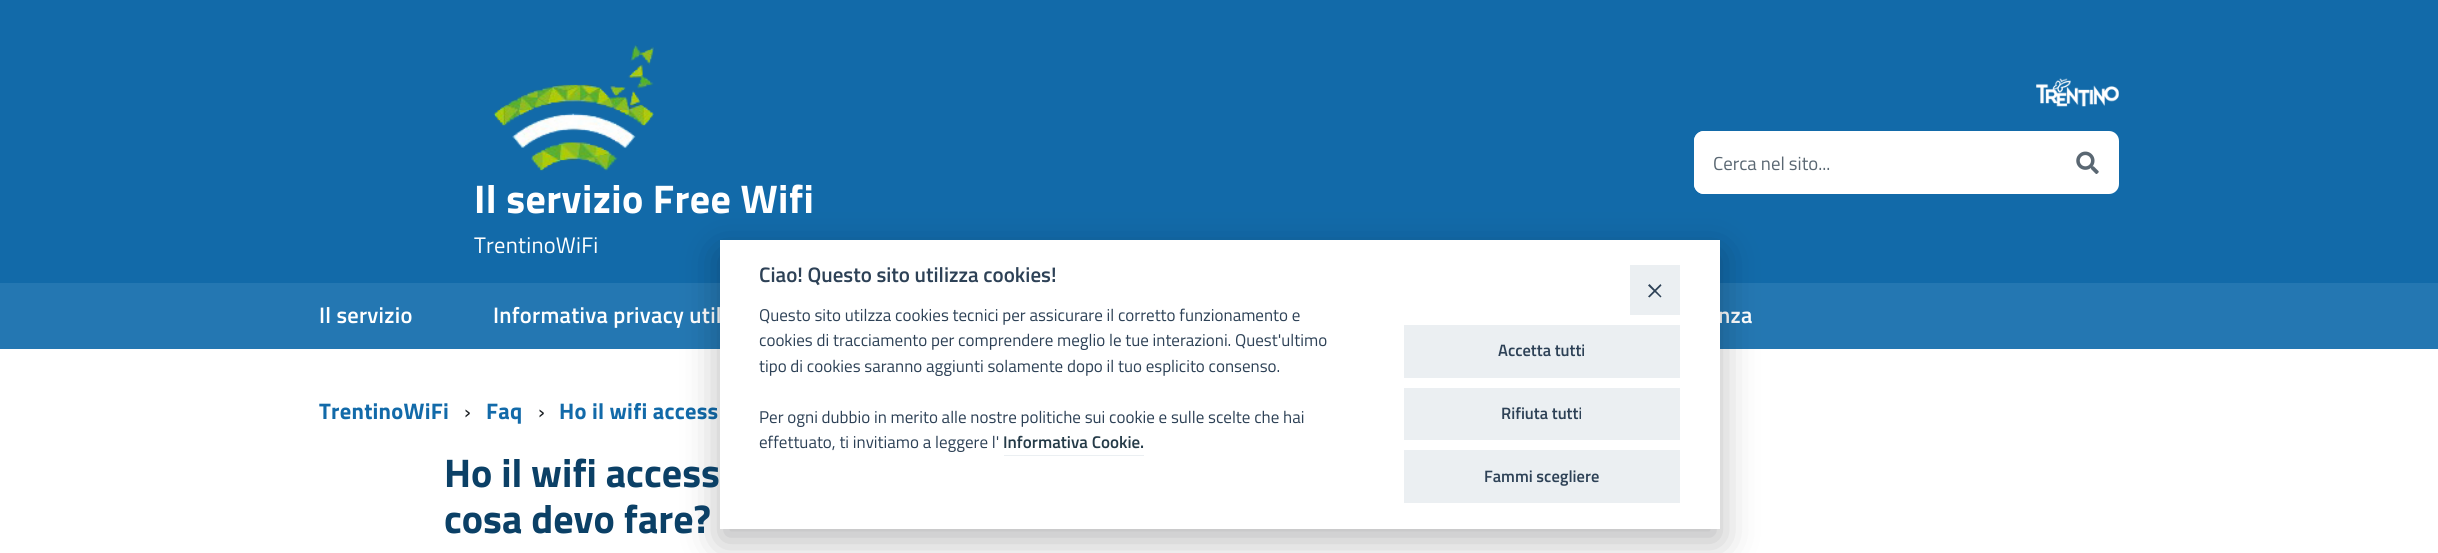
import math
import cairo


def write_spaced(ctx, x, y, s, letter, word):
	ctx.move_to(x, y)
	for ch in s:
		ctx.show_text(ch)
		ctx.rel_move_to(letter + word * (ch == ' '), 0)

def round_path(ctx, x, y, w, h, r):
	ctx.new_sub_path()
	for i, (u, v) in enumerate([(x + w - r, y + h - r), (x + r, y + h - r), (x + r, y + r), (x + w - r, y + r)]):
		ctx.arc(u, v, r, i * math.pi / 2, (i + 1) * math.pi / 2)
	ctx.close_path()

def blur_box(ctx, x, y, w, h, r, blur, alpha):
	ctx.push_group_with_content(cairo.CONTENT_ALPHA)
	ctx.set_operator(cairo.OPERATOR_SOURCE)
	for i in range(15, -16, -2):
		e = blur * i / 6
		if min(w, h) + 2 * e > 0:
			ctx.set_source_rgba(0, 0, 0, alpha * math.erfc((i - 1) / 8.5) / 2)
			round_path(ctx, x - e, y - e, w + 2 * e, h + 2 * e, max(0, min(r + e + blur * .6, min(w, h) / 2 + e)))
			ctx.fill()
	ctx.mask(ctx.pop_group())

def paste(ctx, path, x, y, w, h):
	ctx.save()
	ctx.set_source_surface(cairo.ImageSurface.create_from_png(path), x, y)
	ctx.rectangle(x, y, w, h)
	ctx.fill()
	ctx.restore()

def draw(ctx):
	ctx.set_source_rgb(1, 1, 1)
	ctx.paint()
	ctx.set_source_rgb(0.071, 0.416, 0.663)
	ctx.rectangle(0, 0, 2438, 283)
	ctx.fill()
	paste(ctx, 'media/1.png', 2036, 78, 83, 29)
	ctx.set_source_rgb(1, 1, 1)
	round_path(ctx, 1694, 131, 425, 63, 10)
	ctx.fill()
	round_path(ctx, 1694, 131, 362, 63, 10)
	ctx.fill()
	paste(ctx, 'media/2.png', 2076, 151, 23, 23)
	ctx.select_font_face('Titillium Web')
	ctx.set_font_size(18.75)
	ctx.set_source_rgb(0.353, 0.404, 0.447)
	ctx.move_to(1713, 170)
	ctx.show_text('Cerca nel sito...')
	paste(ctx, 'media/3.png', 493, 45, 162, 126)
	ctx.select_font_face('Titillium Web', cairo.FONT_SLANT_NORMAL, cairo.FONT_WEIGHT_BOLD)
	ctx.set_font_size(40)
	ctx.set_source_rgb(1, 1, 1)
	write_spaced(ctx, 474, 213, 'Il servizio Free Wifi', 0.4, 0)
	ctx.select_font_face('Titillium Web')
	ctx.set_font_size(22.5)
	write_spaced(ctx, 474, 253, 'TrentinoWiFi', 0.25, 0)
	ctx.set_source_rgb(0.141, 0.467, 0.698)
	ctx.rectangle(0, 283, 2438, 66)
	ctx.fill()
	ctx.select_font_face('Titillium Web SemiBold')
	ctx.set_source_rgb(1, 1, 1)
	for x, y, s in [
		(319, 323, 'Il servizio'),
		(493, 323, 'Informativa privacy util'),
		(1718, 323, 'nza'),
	]:
		write_spaced(ctx, x, y, s, 0.25, 0)
	ctx.select_font_face('Titillium Web', cairo.FONT_SLANT_NORMAL, cairo.FONT_WEIGHT_BOLD)
	ctx.set_source_rgb(0.071, 0.416, 0.663)
	write_spaced(ctx, 319, 419, 'TrentinoWiFi', 0.25, 0)
	ctx.select_font_face('Titillium Web')
	ctx.set_source_rgb(0.11, 0.125, 0.141)
	ctx.move_to(464, 419)
	ctx.show_text('›')
	ctx.select_font_face('Titillium Web', cairo.FONT_SLANT_NORMAL, cairo.FONT_WEIGHT_BOLD)
	ctx.set_source_rgb(0.071, 0.416, 0.663)
	write_spaced(ctx, 486, 419, 'Faq', 0.25, 0)
	ctx.select_font_face('Titillium Web')
	ctx.set_source_rgb(0.11, 0.125, 0.141)
	ctx.move_to(538, 419)
	ctx.show_text('›')
	ctx.select_font_face('Titillium Web', cairo.FONT_SLANT_NORMAL, cairo.FONT_WEIGHT_BOLD)
	ctx.set_source_rgb(0.071, 0.416, 0.663)
	write_spaced(ctx, 559, 419, 'Ho il wifi access', 0.25, 0)
	ctx.set_source_rgb(0.008, 0.008, 0.012)
	blur_box(ctx, 720, 253, 1000, 288, 0, 19, 0.28)
	ctx.set_source_rgb(1, 1, 1)
	ctx.rectangle(720, 240, 1000, 289)
	ctx.fill()
	ctx.select_font_face('Titillium Web SemiBold')
	ctx.set_font_size(21)
	ctx.set_source_rgb(0.176, 0.255, 0.337)
	ctx.move_to(759, 282)
	ctx.show_text('Ciao! Questo sito utilizza cookies!')
	ctx.select_font_face('Titillium Web')
	ctx.set_font_size(17)
	for x, y, s in [
		(759, 321, 'Questo sito utilzza cookies tecnici per assicurare il corretto funzionamento e'),
		(759, 346, 'cookies di tracciamento per comprendere meglio le tue interazioni. Quest\'ultimo'),
		(759, 372, 'tipo di cookies saranno aggiunti solamente dopo il tuo esplicito consenso.'),
		(759, 423, 'Per ogni dubbio in merito alle nostre politiche sui cookie e sulle scelte che hai'),
		(759, 448, 'effettuato, ti invitiamo a leggere l\''),
	]:
		ctx.move_to(x, y)
		ctx.show_text(s)
	ctx.select_font_face('Titillium Web SemiBold')
	ctx.set_source_rgb(0.145, 0.231, 0.282)
	ctx.move_to(1003, 448)
	ctx.show_text('Informativa Cookie.')
	ctx.set_source_rgb(0.918, 0.937, 0.949)
	ctx.rectangle(1004, 455, 140, 1)
	ctx.fill()
	ctx.rectangle(1630, 265, 50, 50)
	ctx.fill()
	ctx.set_source_rgb(0.176, 0.255, 0.337)
	ctx.new_path()
	ctx.move_to(1660.5, 284)
	ctx.line_to(1661.5, 285.5)
	ctx.line_to(1649.5, 297.5)
	ctx.line_to(1648, 296.5)
	ctx.close_path()
	ctx.fill()
	ctx.new_path()
	ctx.move_to(1648, 285.5)
	ctx.line_to(1649.5, 284)
	ctx.line_to(1661.5, 296.5)
	ctx.line_to(1660.5, 297.5)
	ctx.close_path()
	ctx.fill()
	ctx.set_source_rgb(0.918, 0.937, 0.949)
	ctx.rectangle(1404, 325, 276, 53)
	ctx.fill()
	ctx.set_font_size(16.5)
	ctx.set_source_rgb(0.176, 0.255, 0.337)
	ctx.move_to(1498, 356)
	ctx.show_text('Accetta tutti')
	ctx.set_source_rgb(0.918, 0.937, 0.949)
	ctx.rectangle(1404, 388, 276, 52)
	ctx.fill()
	ctx.set_source_rgb(0.176, 0.255, 0.337)
	ctx.move_to(1501, 419)
	ctx.show_text('Rifiuta tutti')
	ctx.set_source_rgb(0.918, 0.937, 0.949)
	ctx.rectangle(1404, 450, 276, 53)
	ctx.fill()
	ctx.set_source_rgb(0.176, 0.255, 0.337)
	ctx.move_to(1484, 482)
	ctx.show_text('Fammi scegliere')
	ctx.select_font_face('Titillium Web', cairo.FONT_SLANT_NORMAL, cairo.FONT_WEIGHT_BOLD)
	ctx.set_font_size(40)
	ctx.set_source_rgb(0.043, 0.251, 0.4)
	ctx.move_to(444, 487)
	ctx.show_text('Ho il wifi access')
	ctx.move_to(444, 533)
	ctx.show_text('cosa devo fare?')


surface = cairo.ImageSurface(cairo.FORMAT_RGB24, 2438, 553)
ctx = cairo.Context(surface)
options = cairo.FontOptions()
options.set_hint_metrics(cairo.HINT_METRICS_OFF)
options.set_hint_style(cairo.HINT_STYLE_NONE)
ctx.set_font_options(options)
ctx.set_miter_limit(4)
draw(ctx)
surface.write_to_png('image.png')
